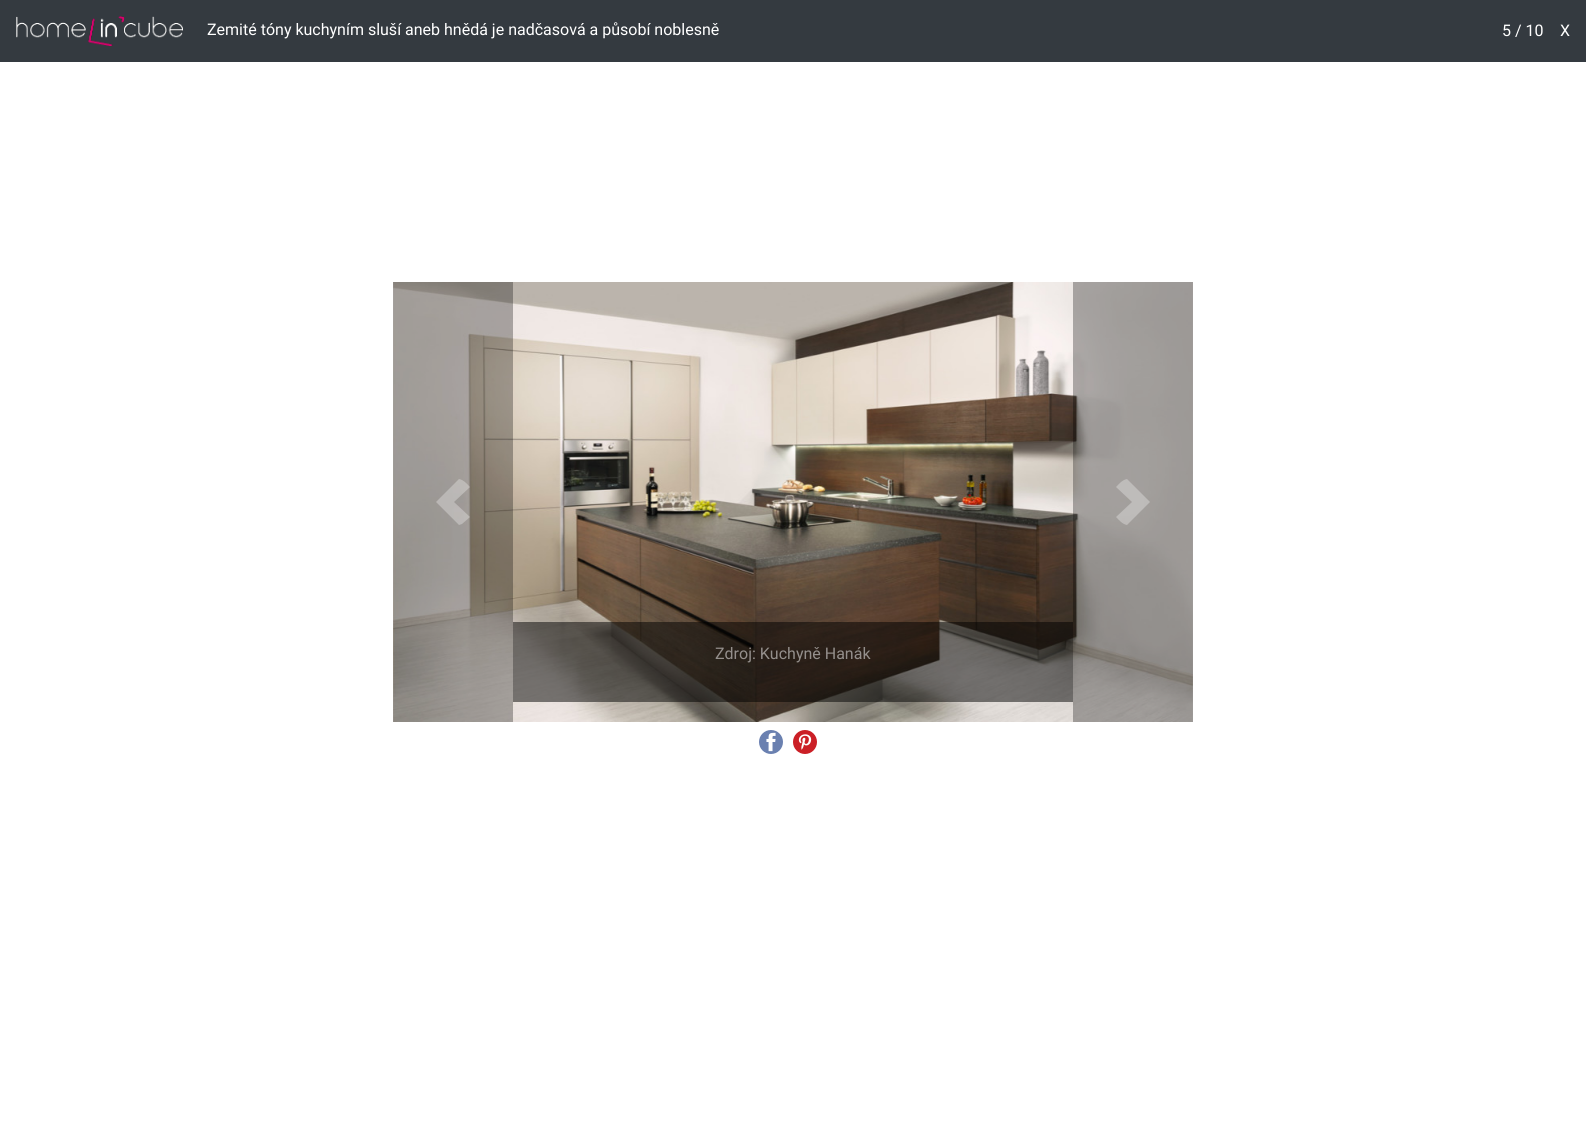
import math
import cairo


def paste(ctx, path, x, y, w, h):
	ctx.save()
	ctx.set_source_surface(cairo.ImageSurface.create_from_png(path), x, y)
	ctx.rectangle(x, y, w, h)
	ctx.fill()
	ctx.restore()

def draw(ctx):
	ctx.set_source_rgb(1, 1, 1)
	ctx.paint()
	ctx.set_source_rgb(0.204, 0.227, 0.251)
	ctx.rectangle(0, 0, 1586, 62)
	ctx.fill()
	paste(ctx, 'media/1.png', 16, 16, 167, 30)
	ctx.select_font_face('Roboto')
	ctx.set_font_size(16)
	ctx.set_source_rgb(1, 1, 1)
	for x, y, s in [
		(207, 35, 'Zemité tóny kuchyním sluší aneb hnědá je nadčasová a působí noblesně'),
		(1502, 36, '5 / 10'),
		(1560, 36, 'X'),
	]:
		ctx.move_to(x, y)
		ctx.show_text(s)
	paste(ctx, 'media/2.png', 393, 282, 800, 440)
	ctx.set_source_rgba(0, 0, 0, 0.3)
	ctx.rectangle(393, 282, 120, 440)
	ctx.fill()
	ctx.set_source_rgba(1, 1, 1, 0.3)
	ctx.new_path()
	ctx.move_to(462, 524)
	ctx.line_to(459, 525)
	ctx.line_to(436, 502)
	ctx.line_to(459, 479)
	ctx.curve_to(464, 480, 467, 484, 470, 487)
	ctx.line_to(454, 502)
	ctx.line_to(470, 517)
	ctx.close_path()
	ctx.fill()
	ctx.set_source_rgba(0, 0, 0, 0.5)
	ctx.rectangle(513, 622, 560, 80)
	ctx.fill()
	ctx.set_source_rgb(0.58, 0.561, 0.549)
	ctx.move_to(715, 659)
	ctx.show_text('Zdroj: Kuchyně Hanák')
	ctx.set_source_rgba(0, 0, 0, 0.3)
	ctx.rectangle(1073, 282, 120, 440)
	ctx.fill()
	ctx.set_source_rgba(1, 1, 1, 0.3)
	ctx.new_path()
	ctx.move_to(1127, 479)
	ctx.line_to(1150, 502)
	ctx.line_to(1127, 525)
	ctx.curve_to(1122, 524, 1119, 520, 1116, 517)
	ctx.line_to(1132, 502)
	ctx.line_to(1116, 487)
	ctx.curve_to(1119, 484, 1122, 480, 1127, 479)
	ctx.close_path()
	ctx.fill()
	paste(ctx, 'media/3.png', 759, 730, 24, 24)
	paste(ctx, 'media/4.png', 793, 730, 24, 24)


surface = cairo.ImageSurface(cairo.FORMAT_RGB24, 1586, 1143)
ctx = cairo.Context(surface)
options = cairo.FontOptions()
options.set_hint_metrics(cairo.HINT_METRICS_OFF)
options.set_hint_style(cairo.HINT_STYLE_NONE)
ctx.set_font_options(options)
ctx.set_miter_limit(4)
draw(ctx)
surface.write_to_png('image.png')
